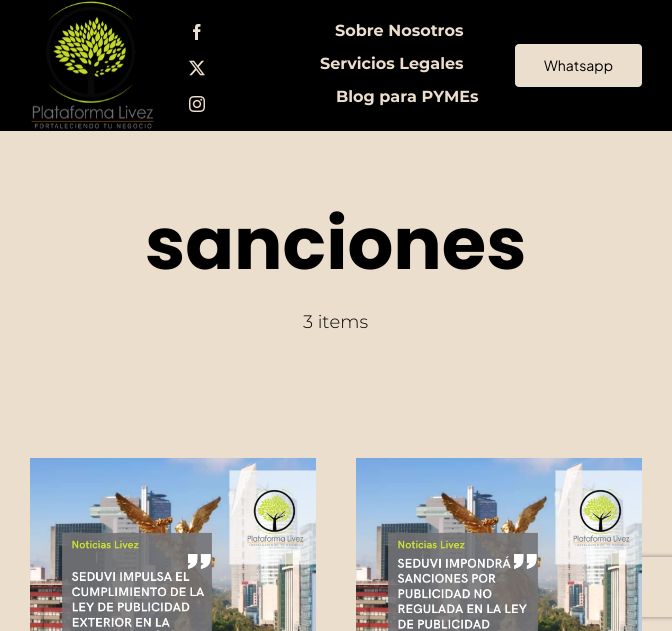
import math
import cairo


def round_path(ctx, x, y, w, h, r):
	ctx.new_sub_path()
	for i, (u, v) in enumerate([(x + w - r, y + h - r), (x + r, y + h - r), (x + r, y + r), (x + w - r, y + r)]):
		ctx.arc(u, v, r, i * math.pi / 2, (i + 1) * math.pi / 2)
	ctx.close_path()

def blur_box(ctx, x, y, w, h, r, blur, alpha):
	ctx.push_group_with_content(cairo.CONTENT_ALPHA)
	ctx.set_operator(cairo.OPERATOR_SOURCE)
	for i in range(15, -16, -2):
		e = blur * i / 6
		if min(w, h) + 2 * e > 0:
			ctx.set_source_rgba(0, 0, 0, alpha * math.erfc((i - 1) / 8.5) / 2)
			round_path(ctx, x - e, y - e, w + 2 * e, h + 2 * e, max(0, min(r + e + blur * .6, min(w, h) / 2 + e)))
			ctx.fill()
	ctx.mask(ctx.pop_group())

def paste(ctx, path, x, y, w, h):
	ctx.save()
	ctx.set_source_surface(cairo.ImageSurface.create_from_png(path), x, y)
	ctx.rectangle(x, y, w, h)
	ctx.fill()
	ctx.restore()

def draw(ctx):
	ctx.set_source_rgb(0.925, 0.871, 0.804)
	ctx.paint()
	ctx.set_source_rgb(0, 0, 0)
	ctx.rectangle(0, 0, 672, 131)
	ctx.fill()
	paste(ctx, 'media/1.png', 31, 1, 123, 128)
	paste(ctx, 'media/2.png', 193, 24, 8, 16)
	paste(ctx, 'media/3.png', 189, 60, 16, 16)
	paste(ctx, 'media/4.png', 189, 96, 16, 16)
	ctx.select_font_face('Montserrat', cairo.FONT_SLANT_NORMAL, cairo.FONT_WEIGHT_BOLD)
	ctx.set_font_size(16)
	ctx.set_source_rgb(0.925, 0.871, 0.804)
	for x, y, s in [
		(335, 36, 'Sobre Nosotros'),
		(320, 69, 'Servicios Legales'),
		(336, 102, 'Blog para PYMEs'),
	]:
		ctx.move_to(x, y)
		ctx.show_text(s)
	round_path(ctx, 515, 44, 127, 43, 4)
	ctx.fill()
	ctx.select_font_face('Plus Jakarta Sans')
	ctx.set_font_size(14)
	ctx.set_source_rgb(0, 0, 0)
	ctx.move_to(544, 71)
	ctx.show_text('Whatsapp')
	ctx.select_font_face('Poppins', cairo.FONT_SLANT_NORMAL, cairo.FONT_WEIGHT_BOLD)
	ctx.set_font_size(72)
	ctx.move_to(145, 269)
	ctx.show_text('sanciones')
	ctx.select_font_face('Montserrat Light')
	ctx.set_font_size(18)
	ctx.move_to(303, 328)
	ctx.show_text('3 items')
	paste(ctx, 'media/5.png', 30, 458, 286, 173)
	ctx.save()
	ctx.set_fill_rule(cairo.FILL_RULE_EVEN_ODD)
	ctx.new_path()
	ctx.move_to(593, 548)
	ctx.line_to(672, 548)
	ctx.line_to(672, 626)
	ctx.line_to(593, 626)
	ctx.close_path()
	ctx.move_to(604, 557)
	ctx.line_to(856, 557)
	ctx.curve_to(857, 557, 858, 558, 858, 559)
	ctx.line_to(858, 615)
	ctx.curve_to(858, 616, 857, 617, 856, 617)
	ctx.line_to(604, 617)
	ctx.curve_to(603, 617, 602, 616, 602, 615)
	ctx.line_to(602, 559)
	ctx.curve_to(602, 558, 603, 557, 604, 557)
	ctx.close_path()
	ctx.clip()
	ctx.set_source_rgb(0.502, 0.502, 0.502)
	blur_box(ctx, 602, 557, 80, 60, 2, 2.5, 1)
	ctx.restore()
	paste(ctx, 'media/6.png', 356, 458, 286, 173)


surface = cairo.ImageSurface(cairo.FORMAT_RGB24, 672, 631)
ctx = cairo.Context(surface)
options = cairo.FontOptions()
options.set_hint_metrics(cairo.HINT_METRICS_OFF)
options.set_hint_style(cairo.HINT_STYLE_NONE)
ctx.set_font_options(options)
ctx.set_miter_limit(4)
draw(ctx)
surface.write_to_png('image.png')
